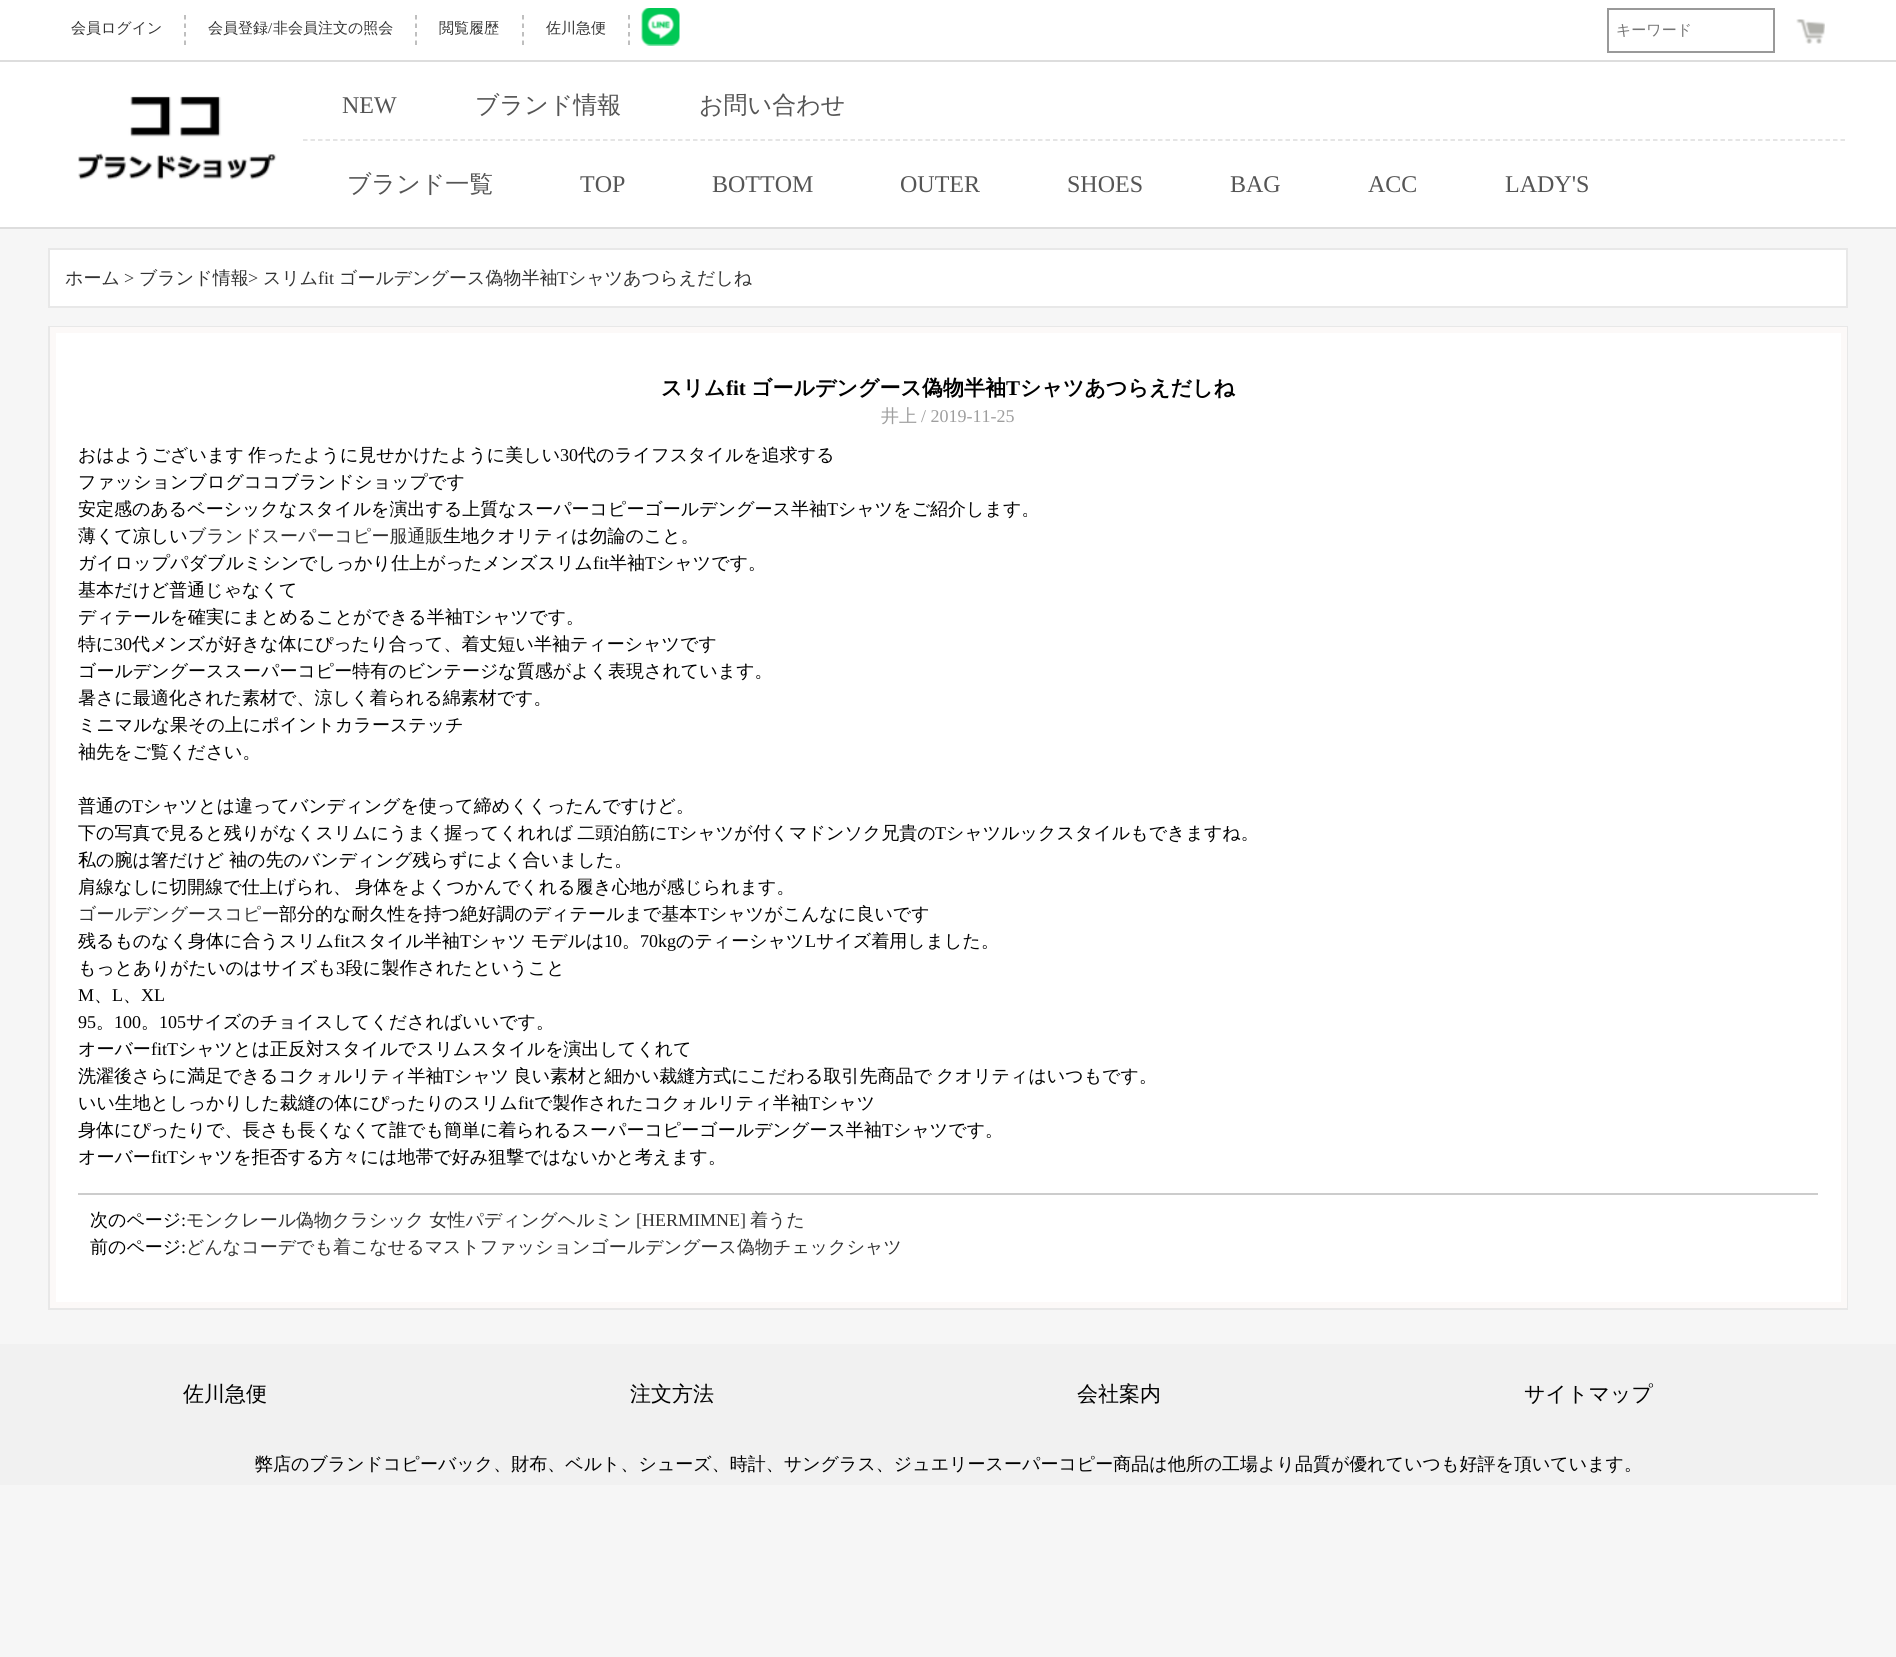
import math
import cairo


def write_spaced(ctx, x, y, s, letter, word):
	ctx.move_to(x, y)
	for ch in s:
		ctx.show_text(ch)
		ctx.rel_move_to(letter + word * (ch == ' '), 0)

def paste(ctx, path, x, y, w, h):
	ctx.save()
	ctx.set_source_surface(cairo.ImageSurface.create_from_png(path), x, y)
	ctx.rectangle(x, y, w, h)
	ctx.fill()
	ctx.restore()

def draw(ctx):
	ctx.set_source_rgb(0.961, 0.961, 0.961)
	ctx.paint()
	ctx.set_source_rgb(1, 1, 1)
	ctx.rectangle(0, 0, 1896, 60)
	ctx.fill()
	ctx.set_source_rgb(0.867, 0.867, 0.867)
	ctx.rectangle(0, 60, 1896, 2)
	ctx.fill()
	ctx.new_path()
	ctx.move_to(185, 15)
	ctx.line_to(185, 45)
	ctx.set_source_rgb(0.667, 0.667, 0.667)
	ctx.set_line_width(1.5)
	ctx.set_dash([4.5, 4])
	ctx.stroke()
	ctx.select_font_face('WenQuanYi Zen Hei Medium')
	ctx.set_font_size(15)
	ctx.set_source_rgb(0.2, 0.2, 0.2)
	ctx.move_to(71, 33)
	ctx.show_text('会員ログイン')
	ctx.new_path()
	ctx.move_to(416, 15)
	ctx.line_to(416, 45)
	ctx.set_source_rgb(0.667, 0.667, 0.667)
	ctx.stroke()
	ctx.set_source_rgb(0.2, 0.2, 0.2)
	ctx.move_to(208, 33)
	ctx.show_text('会員登録')
	ctx.select_font_face('Liberation Serif')
	ctx.move_to(268, 33)
	ctx.show_text('/')
	ctx.select_font_face('WenQuanYi Zen Hei Medium')
	ctx.move_to(273, 33)
	ctx.show_text('非会員注文の照会')
	ctx.new_path()
	ctx.move_to(523, 15)
	ctx.line_to(523, 45)
	ctx.set_source_rgb(0.667, 0.667, 0.667)
	ctx.stroke()
	ctx.set_source_rgb(0.2, 0.2, 0.2)
	ctx.move_to(439, 33)
	ctx.show_text('閲覧履歴')
	ctx.new_path()
	ctx.move_to(629, 15)
	ctx.line_to(629, 45)
	ctx.set_source_rgb(0.667, 0.667, 0.667)
	ctx.stroke()
	ctx.set_source_rgb(0.2, 0.2, 0.2)
	ctx.move_to(546, 33)
	ctx.show_text('佐川急便')
	paste(ctx, 'media/1.png', 641, 8, 39, 38)
	ctx.rectangle(1608, 9, 166, 43)
	ctx.set_source_rgb(0.6, 0.6, 0.6)
	ctx.set_line_width(2)
	ctx.set_dash([])
	ctx.stroke()
	ctx.set_source_rgb(0.459, 0.459, 0.459)
	ctx.move_to(1616, 35)
	ctx.show_text('キーワード')
	paste(ctx, 'media/2.png', 1796, 19, 29, 25)
	ctx.set_source_rgb(1, 1, 1)
	ctx.rectangle(0, 62, 1896, 165)
	ctx.fill()
	ctx.set_source_rgb(0.867, 0.867, 0.867)
	ctx.rectangle(0, 227, 1896, 2)
	ctx.fill()
	paste(ctx, 'media/3.png', 78, 96, 199, 84)
	ctx.new_path()
	ctx.move_to(303, 140)
	ctx.line_to(1845, 140)
	ctx.set_line_width(1.5)
	ctx.set_dash([4.5, 3])
	ctx.stroke()
	ctx.select_font_face('Liberation Serif')
	ctx.set_font_size(24)
	ctx.set_source_rgb(0.333, 0.333, 0.333)
	ctx.move_to(342, 113)
	ctx.show_text('NEW')
	ctx.select_font_face('WenQuanYi Zen Hei Medium')
	for x, y, s in [
		(475, 113, 'ブランド情報'),
		(699, 113, 'お問い合わせ'),
		(347, 192, 'ブランド一覧'),
	]:
		ctx.move_to(x, y)
		ctx.show_text(s)
	ctx.select_font_face('Liberation Serif')
	for x, y, s in [
		(580, 192, 'TOP'),
		(712, 192, 'BOTTOM'),
		(900, 192, 'OUTER'),
		(1067, 192, 'SHOES'),
		(1230, 192, 'BAG'),
		(1368, 192, 'ACC'),
		(1505, 192, 'LADY\'S'),
	]:
		ctx.move_to(x, y)
		ctx.show_text(s)
	ctx.set_source_rgb(1, 1, 1)
	ctx.rectangle(49, 249, 1798, 58)
	ctx.fill_preserve()
	ctx.set_source_rgb(0.91, 0.91, 0.91)
	ctx.set_line_width(2)
	ctx.set_dash([])
	ctx.stroke()
	ctx.select_font_face('WenQuanYi Zen Hei Medium')
	ctx.set_font_size(18)
	ctx.set_source_rgb(0.2, 0.2, 0.2)
	ctx.move_to(65, 284)
	ctx.show_text('ホーム')
	ctx.select_font_face('Liberation Serif')
	ctx.move_to(124, 284)
	ctx.show_text('>')
	ctx.select_font_face('WenQuanYi Zen Hei Medium')
	ctx.move_to(139, 284)
	ctx.show_text('ブランド情報')
	ctx.select_font_face('Liberation Serif')
	ctx.move_to(248, 284)
	ctx.show_text('>')
	ctx.select_font_face('WenQuanYi Zen Hei Medium')
	ctx.move_to(263, 284)
	ctx.show_text('スリム')
	ctx.select_font_face('Liberation Serif')
	ctx.move_to(318, 284)
	ctx.show_text('fit')
	ctx.select_font_face('WenQuanYi Zen Hei Medium')
	ctx.move_to(339, 284)
	ctx.show_text('ゴールデングース偽物半袖')
	ctx.select_font_face('Liberation Serif')
	ctx.move_to(557, 284)
	ctx.show_text('T')
	ctx.select_font_face('WenQuanYi Zen Hei Medium')
	ctx.move_to(568, 284)
	ctx.show_text('シャツあつらえだしね')
	ctx.rectangle(49, 327, 1798, 982)
	ctx.set_source_rgb(0.91, 0.91, 0.91)
	ctx.stroke()
	ctx.set_source_rgb(1, 1, 1)
	ctx.rectangle(53, 330, 1791, 975)
	ctx.fill_preserve()
	ctx.set_source_rgb(0.988, 0.973, 0.969)
	ctx.set_line_width(6)
	ctx.stroke()
	ctx.select_font_face('WenQuanYi Zen Hei', cairo.FONT_SLANT_NORMAL, cairo.FONT_WEIGHT_BOLD)
	ctx.set_font_size(21)
	ctx.set_source_rgb(0, 0, 0)
	ctx.move_to(661, 395)
	ctx.show_text('スリム')
	ctx.select_font_face('Liberation Serif', cairo.FONT_SLANT_NORMAL, cairo.FONT_WEIGHT_BOLD)
	ctx.move_to(726, 395)
	ctx.show_text('fit')
	ctx.select_font_face('WenQuanYi Zen Hei', cairo.FONT_SLANT_NORMAL, cairo.FONT_WEIGHT_BOLD)
	ctx.move_to(751, 395)
	ctx.show_text('ゴールデングース偽物半袖')
	ctx.select_font_face('Liberation Serif', cairo.FONT_SLANT_NORMAL, cairo.FONT_WEIGHT_BOLD)
	ctx.move_to(1006, 395)
	ctx.show_text('T')
	ctx.select_font_face('WenQuanYi Zen Hei', cairo.FONT_SLANT_NORMAL, cairo.FONT_WEIGHT_BOLD)
	ctx.move_to(1020, 395)
	ctx.show_text('シャツあつらえだしね')
	ctx.select_font_face('WenQuanYi Zen Hei Medium')
	ctx.set_font_size(18)
	ctx.set_source_rgb(0.62, 0.62, 0.62)
	ctx.move_to(881, 422)
	ctx.show_text('井上')
	ctx.select_font_face('Liberation Serif')
	ctx.move_to(921, 422)
	ctx.show_text('/ 2019-11-25')
	ctx.select_font_face('WenQuanYi Zen Hei Medium')
	ctx.set_source_rgb(0, 0, 0)
	write_spaced(ctx, 78, 461, 'おはようございます 作ったように見せかけたように美しい', 0, -1)
	ctx.select_font_face('Liberation Serif')
	ctx.move_to(560, 461)
	ctx.show_text('30')
	ctx.select_font_face('WenQuanYi Zen Hei Medium')
	for x, y, s in [
		(578, 461, '代のライフスタイルを追求する'),
		(78, 488, 'ファッションブログココブランドショップです'),
		(78, 515, '安定感のあるベーシックなスタイルを演出する上質なスーパーコピーゴールデングース半袖'),
	]:
		ctx.move_to(x, y)
		ctx.show_text(s)
	ctx.select_font_face('Liberation Serif')
	ctx.move_to(827, 515)
	ctx.show_text('T')
	ctx.select_font_face('WenQuanYi Zen Hei Medium')
	ctx.move_to(838, 515)
	ctx.show_text('シャツをご紹介します。')
	ctx.move_to(78, 542)
	ctx.show_text('薄くて凉しい')
	ctx.set_source_rgb(0.2, 0.2, 0.2)
	ctx.move_to(188, 542)
	ctx.show_text('ブランドスーパーコピー服通販')
	ctx.set_source_rgb(0, 0, 0)
	ctx.move_to(443, 542)
	ctx.show_text('生地クオリティは勿論のこと。')
	ctx.move_to(78, 569)
	ctx.show_text('ガイロップパダブルミシンでしっかり仕上がったメンズスリム')
	ctx.select_font_face('Liberation Serif')
	ctx.move_to(593, 569)
	ctx.show_text('fit')
	ctx.select_font_face('WenQuanYi Zen Hei Medium')
	ctx.move_to(609, 569)
	ctx.show_text('半袖')
	ctx.select_font_face('Liberation Serif')
	ctx.move_to(645, 569)
	ctx.show_text('T')
	ctx.select_font_face('WenQuanYi Zen Hei Medium')
	for x, y, s in [
		(656, 569, 'シャツです。'),
		(78, 596, '基本だけど普通じゃなくて'),
		(78, 623, 'ディテールを確実にまとめることができる半袖'),
	]:
		ctx.move_to(x, y)
		ctx.show_text(s)
	ctx.select_font_face('Liberation Serif')
	ctx.move_to(463, 623)
	ctx.show_text('T')
	ctx.select_font_face('WenQuanYi Zen Hei Medium')
	ctx.move_to(474, 623)
	ctx.show_text('シャツです。')
	ctx.move_to(78, 650)
	ctx.show_text('特に')
	ctx.select_font_face('Liberation Serif')
	ctx.move_to(114, 650)
	ctx.show_text('30')
	ctx.select_font_face('WenQuanYi Zen Hei Medium')
	for x, y, s in [
		(132, 650, '代メンズが好きな体にぴったり合って、着丈短い半袖ティーシャツです'),
		(78, 677, 'ゴールデングーススーパーコピー特有のビンテージな質感がよく表現されています。'),
		(78, 704, '暑さに最適化された素材で、涼しく着られる綿素材です。'),
		(78, 731, 'ミニマルな果その上にポイントカラーステッチ'),
		(78, 758, '袖先をご覧ください。'),
		(78, 812, '普通の'),
	]:
		ctx.move_to(x, y)
		ctx.show_text(s)
	ctx.select_font_face('Liberation Serif')
	ctx.move_to(132, 812)
	ctx.show_text('T')
	ctx.select_font_face('WenQuanYi Zen Hei Medium')
	ctx.move_to(143, 812)
	ctx.show_text('シャツとは違ってバンディングを使って締めくくったんですけど。')
	write_spaced(ctx, 78, 839, '下の写真で見ると残りがなくスリムにうまく握ってくれれば 二頭泊筋に', 0, -1)
	ctx.select_font_face('Liberation Serif')
	ctx.move_to(668, 839)
	ctx.show_text('T')
	ctx.select_font_face('WenQuanYi Zen Hei Medium')
	ctx.move_to(679, 839)
	ctx.show_text('シャツが付くマドンソク兄貴の')
	ctx.select_font_face('Liberation Serif')
	ctx.move_to(935, 839)
	ctx.show_text('T')
	ctx.select_font_face('WenQuanYi Zen Hei Medium')
	for x, y, s in [
		(946, 839, 'シャツルックスタイルもできますね。'),
		(78, 866, '私の腕は箸だけど'),
		(229, 866, '袖の先のバンディング残らずによく合いました。'),
	]:
		ctx.move_to(x, y)
		ctx.show_text(s)
	write_spaced(ctx, 78, 893, '肩線なしに切開線で仕上げられ、 身体をよくつかんでくれる履き心地が感じられます。', 0, -1)
	ctx.set_source_rgb(0.2, 0.2, 0.2)
	ctx.move_to(78, 920)
	ctx.show_text('ゴールデングースコピー')
	ctx.set_source_rgb(0, 0, 0)
	ctx.move_to(279, 920)
	ctx.show_text('部分的な耐久性を持つ絶好調のディテールまで基本')
	ctx.select_font_face('Liberation Serif')
	ctx.move_to(698, 920)
	ctx.show_text('T')
	ctx.select_font_face('WenQuanYi Zen Hei Medium')
	ctx.move_to(709, 920)
	ctx.show_text('シャツがこんなに良いです')
	ctx.move_to(78, 947)
	ctx.show_text('残るものなく身体に合うスリム')
	ctx.select_font_face('Liberation Serif')
	ctx.move_to(334, 947)
	ctx.show_text('fit')
	ctx.select_font_face('WenQuanYi Zen Hei Medium')
	ctx.move_to(350, 947)
	ctx.show_text('スタイル半袖')
	ctx.select_font_face('Liberation Serif')
	ctx.move_to(460, 947)
	ctx.show_text('T')
	ctx.select_font_face('WenQuanYi Zen Hei Medium')
	write_spaced(ctx, 471, 947, 'シャツ モデルは', 0, -1)
	ctx.select_font_face('Liberation Serif')
	ctx.move_to(604, 947)
	ctx.show_text('10')
	ctx.select_font_face('WenQuanYi Zen Hei Medium')
	ctx.move_to(622, 947)
	ctx.show_text('。')
	ctx.select_font_face('Liberation Serif')
	ctx.move_to(640, 947)
	ctx.show_text('70kg')
	ctx.select_font_face('WenQuanYi Zen Hei Medium')
	ctx.move_to(676, 947)
	ctx.show_text('のティーシャツ')
	ctx.select_font_face('Liberation Serif')
	ctx.move_to(805, 947)
	ctx.show_text('L')
	ctx.select_font_face('WenQuanYi Zen Hei Medium')
	ctx.move_to(816, 947)
	ctx.show_text('サイズ着用しました。')
	ctx.move_to(78, 974)
	ctx.show_text('もっとありがたいのはサイズも')
	ctx.select_font_face('Liberation Serif')
	ctx.move_to(336, 974)
	ctx.show_text('3')
	ctx.select_font_face('WenQuanYi Zen Hei Medium')
	ctx.move_to(345, 974)
	ctx.show_text('段に製作されたということ')
	ctx.select_font_face('Liberation Serif')
	for x, y, s in [
		(78, 1001, 'M'),
		(112, 1001, 'L'),
		(141, 1001, 'XL'),
	]:
		ctx.move_to(x, y)
		ctx.show_text(s)
	ctx.select_font_face('WenQuanYi Zen Hei Medium')
	ctx.move_to(94, 1001)
	ctx.show_text('、')
	ctx.move_to(123, 1001)
	ctx.show_text('、')
	ctx.select_font_face('Liberation Serif')
	ctx.move_to(78, 1028)
	ctx.show_text('95')
	ctx.select_font_face('WenQuanYi Zen Hei Medium')
	ctx.move_to(96, 1028)
	ctx.show_text('。')
	ctx.select_font_face('Liberation Serif')
	ctx.move_to(114, 1028)
	ctx.show_text('100')
	ctx.select_font_face('WenQuanYi Zen Hei Medium')
	ctx.move_to(141, 1028)
	ctx.show_text('。')
	ctx.select_font_face('Liberation Serif')
	ctx.move_to(159, 1028)
	ctx.show_text('105')
	ctx.select_font_face('WenQuanYi Zen Hei Medium')
	ctx.move_to(186, 1028)
	ctx.show_text('サイズのチョイスしてくださればいいです。')
	ctx.move_to(78, 1055)
	ctx.show_text('オーバー')
	ctx.select_font_face('Liberation Serif')
	ctx.move_to(151, 1055)
	ctx.show_text('fitT')
	ctx.select_font_face('WenQuanYi Zen Hei Medium')
	ctx.move_to(178, 1055)
	ctx.show_text('シャツとは正反対スタイルでスリムスタイルを演出してくれて')
	ctx.move_to(78, 1082)
	ctx.show_text('洗濯後さらに満足できるコクォルリティ半袖')
	ctx.select_font_face('Liberation Serif')
	ctx.move_to(443, 1082)
	ctx.show_text('T')
	ctx.select_font_face('WenQuanYi Zen Hei Medium')
	write_spaced(ctx, 454, 1082, 'シャツ 良い素材と細かい裁縫方式にこだわる取引先商品で クオリティはいつもです。', 0, -1)
	ctx.move_to(78, 1109)
	ctx.show_text('いい生地としっかりした裁縫の体にぴったりのスリム')
	ctx.select_font_face('Liberation Serif')
	ctx.move_to(518, 1109)
	ctx.show_text('fit')
	ctx.select_font_face('WenQuanYi Zen Hei Medium')
	ctx.move_to(534, 1109)
	ctx.show_text('で製作されたコクォルリティ半袖')
	ctx.select_font_face('Liberation Serif')
	ctx.move_to(809, 1109)
	ctx.show_text('T')
	ctx.select_font_face('WenQuanYi Zen Hei Medium')
	ctx.move_to(820, 1109)
	ctx.show_text('シャツ')
	ctx.move_to(78, 1136)
	ctx.show_text('身体にぴったりで、長さも長くなくて誰でも簡単に着られるスーパーコピーゴールデングース半袖')
	ctx.select_font_face('Liberation Serif')
	ctx.move_to(882, 1136)
	ctx.show_text('T')
	ctx.select_font_face('WenQuanYi Zen Hei Medium')
	ctx.move_to(893, 1136)
	ctx.show_text('シャツです。')
	ctx.move_to(78, 1163)
	ctx.show_text('オーバー')
	ctx.select_font_face('Liberation Serif')
	ctx.move_to(151, 1163)
	ctx.show_text('fitT')
	ctx.select_font_face('WenQuanYi Zen Hei Medium')
	ctx.move_to(178, 1163)
	ctx.show_text('シャツを拒否する方々には地帯で好み狙撃ではないかと考えます。')
	ctx.set_source_rgb(0.8, 0.8, 0.8)
	ctx.rectangle(78, 1193, 1740, 2)
	ctx.fill()
	ctx.set_source_rgb(0, 0, 0)
	ctx.move_to(90, 1226)
	ctx.show_text('次のページ')
	ctx.select_font_face('Liberation Serif')
	ctx.move_to(181, 1226)
	ctx.show_text(':')
	ctx.select_font_face('WenQuanYi Zen Hei Medium')
	ctx.set_source_rgb(0.2, 0.2, 0.2)
	ctx.move_to(186, 1226)
	ctx.show_text('モンクレール偽物クラシック 女性パディングヘルミン')
	ctx.select_font_face('Liberation Serif')
	ctx.move_to(636, 1226)
	ctx.show_text('[HERMIMNE]')
	ctx.select_font_face('WenQuanYi Zen Hei Medium')
	ctx.move_to(750, 1226)
	ctx.show_text('着うた')
	ctx.set_source_rgb(0, 0, 0)
	ctx.move_to(90, 1253)
	ctx.show_text('前のページ')
	ctx.select_font_face('Liberation Serif')
	ctx.move_to(181, 1253)
	ctx.show_text(':')
	ctx.select_font_face('WenQuanYi Zen Hei Medium')
	ctx.set_source_rgb(0.2, 0.2, 0.2)
	ctx.move_to(186, 1253)
	ctx.show_text('どんなコーデでも着こなせるマストファッションゴールデングース偽物チェックシャツ')
	ctx.set_source_rgb(0.945, 0.945, 0.945)
	ctx.rectangle(0, 1344, 1896, 141)
	ctx.fill()
	ctx.set_font_size(21)
	ctx.set_source_rgb(0, 0, 0)
	for x, y, s in [
		(183, 1401, '佐川急便'),
		(630, 1401, '注文方法'),
		(1077, 1401, '会社案内'),
		(1524, 1401, 'サイトマップ'),
	]:
		ctx.move_to(x, y)
		ctx.show_text(s)
	ctx.set_font_size(18)
	ctx.move_to(255, 1470)
	ctx.show_text('弊店のブランドコピーバック、財布、ベルト、シューズ、時計、サングラス、ジュエリースーパーコピー商品は他所の工場より品質が優れていつも好評を頂いています。')


surface = cairo.ImageSurface(cairo.FORMAT_RGB24, 1896, 1657)
ctx = cairo.Context(surface)
options = cairo.FontOptions()
options.set_hint_metrics(cairo.HINT_METRICS_OFF)
options.set_hint_style(cairo.HINT_STYLE_NONE)
ctx.set_font_options(options)
ctx.set_miter_limit(4)
draw(ctx)
surface.write_to_png('image.png')
